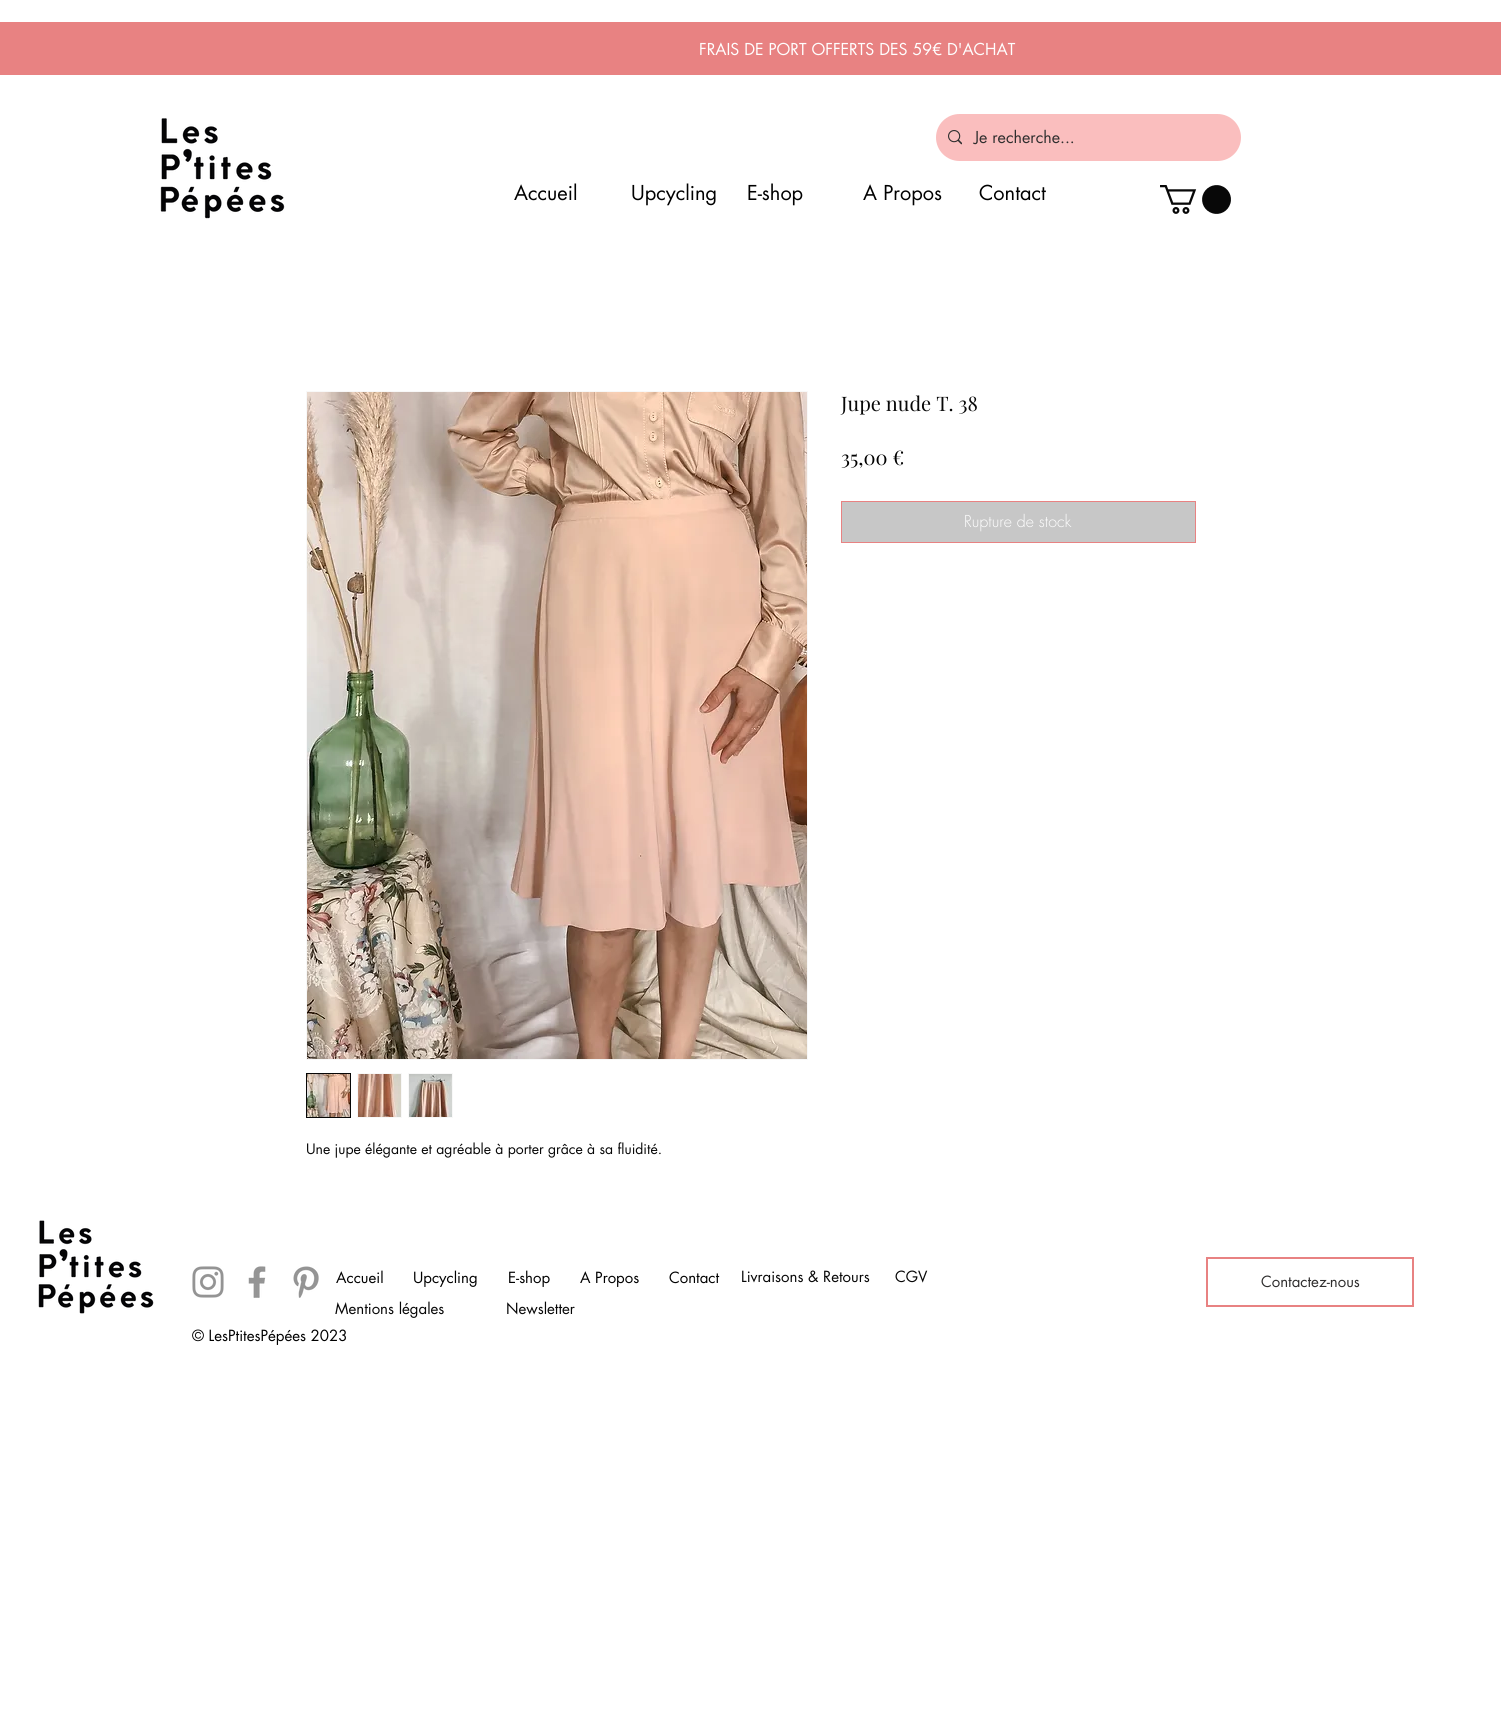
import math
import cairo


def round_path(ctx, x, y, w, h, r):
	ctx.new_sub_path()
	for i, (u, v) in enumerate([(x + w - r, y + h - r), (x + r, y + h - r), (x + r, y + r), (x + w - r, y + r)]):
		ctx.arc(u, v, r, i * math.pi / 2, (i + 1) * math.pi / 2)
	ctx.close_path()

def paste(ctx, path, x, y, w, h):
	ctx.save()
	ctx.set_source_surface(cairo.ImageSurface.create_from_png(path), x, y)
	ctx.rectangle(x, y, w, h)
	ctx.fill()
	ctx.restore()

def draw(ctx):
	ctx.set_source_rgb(1, 1, 1)
	ctx.paint()
	ctx.set_source_rgb(0.91, 0.51, 0.51)
	ctx.rectangle(0, 22, 1501, 53)
	ctx.fill()
	ctx.select_font_face('futura')
	ctx.set_font_size(16)
	ctx.set_source_rgb(1, 1, 1)
	ctx.move_to(699, 55)
	ctx.show_text('FRAIS DE PORT OFFERTS DES 59€ D\'ACHAT')
	paste(ctx, 'media/1.png', 160, 118, 125, 101)
	ctx.set_source_rgb(0.98, 0.745, 0.745)
	round_path(ctx, 936, 114, 305, 47, 23.5)
	ctx.fill()
	paste(ctx, 'media/2.png', 948, 130, 14, 15)
	ctx.set_source_rgb(0.184, 0.18, 0.18)
	ctx.move_to(974, 143)
	ctx.show_text('Je recherche...')
	ctx.set_font_size(20)
	ctx.set_source_rgb(0, 0, 0)
	for x, y, s in [
		(514, 200, 'Accueil'),
		(631, 200, 'Upcycling'),
		(747, 200, 'E-shop'),
		(863, 200, 'A Propos'),
		(979, 200, 'Contact'),
	]:
		ctx.move_to(x, y)
		ctx.show_text(s)
	paste(ctx, 'media/3.png', 1160, 185, 71, 29)
	ctx.select_font_face('Playfair Display')
	ctx.set_source_rgb(0.031, 0.031, 0.031)
	ctx.move_to(841, 411)
	ctx.show_text('Jupe nude T. 38')
	ctx.set_source_rgb(0, 0, 0)
	ctx.move_to(841, 465)
	ctx.show_text('35,00 €')
	ctx.set_source_rgb(0.78, 0.78, 0.78)
	ctx.rectangle(841.5, 501.5, 354, 41)
	ctx.fill_preserve()
	ctx.set_source_rgb(0.91, 0.51, 0.51)
	ctx.set_line_width(1)
	ctx.stroke()
	ctx.select_font_face('futura Light')
	ctx.set_font_size(16)
	ctx.set_source_rgb(1, 1, 1)
	ctx.move_to(964, 527)
	ctx.show_text('Rupture de stock')
	ctx.rectangle(306.5, 391.5, 501, 668)
	ctx.set_source_rgb(0.969, 0.969, 0.969)
	ctx.stroke()
	paste(ctx, 'media/4.png', 307, 392, 500, 667)
	ctx.rectangle(306.5, 1073.5, 44, 44)
	ctx.set_source_rgb(0.031, 0.031, 0.031)
	ctx.stroke()
	paste(ctx, 'media/5.png', 307, 1074, 43, 43)
	ctx.rectangle(357.5, 1073.5, 44, 44)
	ctx.set_source_rgb(0.969, 0.969, 0.969)
	ctx.stroke()
	paste(ctx, 'media/6.png', 358, 1074, 43, 43)
	ctx.rectangle(408.5, 1073.5, 44, 44)
	ctx.stroke()
	paste(ctx, 'media/7.png', 409, 1074, 43, 43)
	ctx.select_font_face('futura')
	ctx.set_font_size(14)
	ctx.set_source_rgb(0.031, 0.031, 0.031)
	ctx.move_to(306, 1154)
	ctx.show_text('Une jupe élégante et agréable à porter grâce à sa fluidité.')
	paste(ctx, 'media/8.png', 38, 1220, 116, 94)
	paste(ctx, 'media/9.png', 192, 1266, 32, 32)
	paste(ctx, 'media/10.png', 248, 1266, 18, 32)
	paste(ctx, 'media/11.png', 293, 1266, 26, 32)
	ctx.set_font_size(15)
	ctx.set_source_rgb(0, 0, 0)
	for x, y, s in [
		(336, 1283, 'Accueil'),
		(413, 1283, 'Upcycling'),
		(508, 1283, 'E-shop'),
		(580, 1283, 'A Propos'),
		(669, 1283, 'Contact'),
	]:
		ctx.move_to(x, y)
		ctx.show_text(s)
	ctx.set_source_rgb(0.031, 0.031, 0.031)
	for x, y, s in [
		(741, 1282, 'Livraisons & Retours'),
		(895, 1282, 'CGV'),
		(335, 1314, 'Mentions légales'),
		(506, 1314, 'Newsletter'),
	]:
		ctx.move_to(x, y)
		ctx.show_text(s)
	ctx.set_source_rgb(0, 0, 0)
	ctx.move_to(192, 1341)
	ctx.show_text('© LesPtitesPépées 2023')
	ctx.rectangle(1207, 1258, 206, 48)
	ctx.set_source_rgb(0.91, 0.51, 0.51)
	ctx.set_line_width(2)
	ctx.stroke()
	ctx.set_source_rgb(0.184, 0.18, 0.18)
	ctx.move_to(1261, 1287)
	ctx.show_text('Contactez-nous')


surface = cairo.ImageSurface(cairo.FORMAT_RGB24, 1501, 1718)
ctx = cairo.Context(surface)
options = cairo.FontOptions()
options.set_hint_metrics(cairo.HINT_METRICS_OFF)
options.set_hint_style(cairo.HINT_STYLE_NONE)
ctx.set_font_options(options)
ctx.set_miter_limit(4)
draw(ctx)
surface.write_to_png('image.png')
